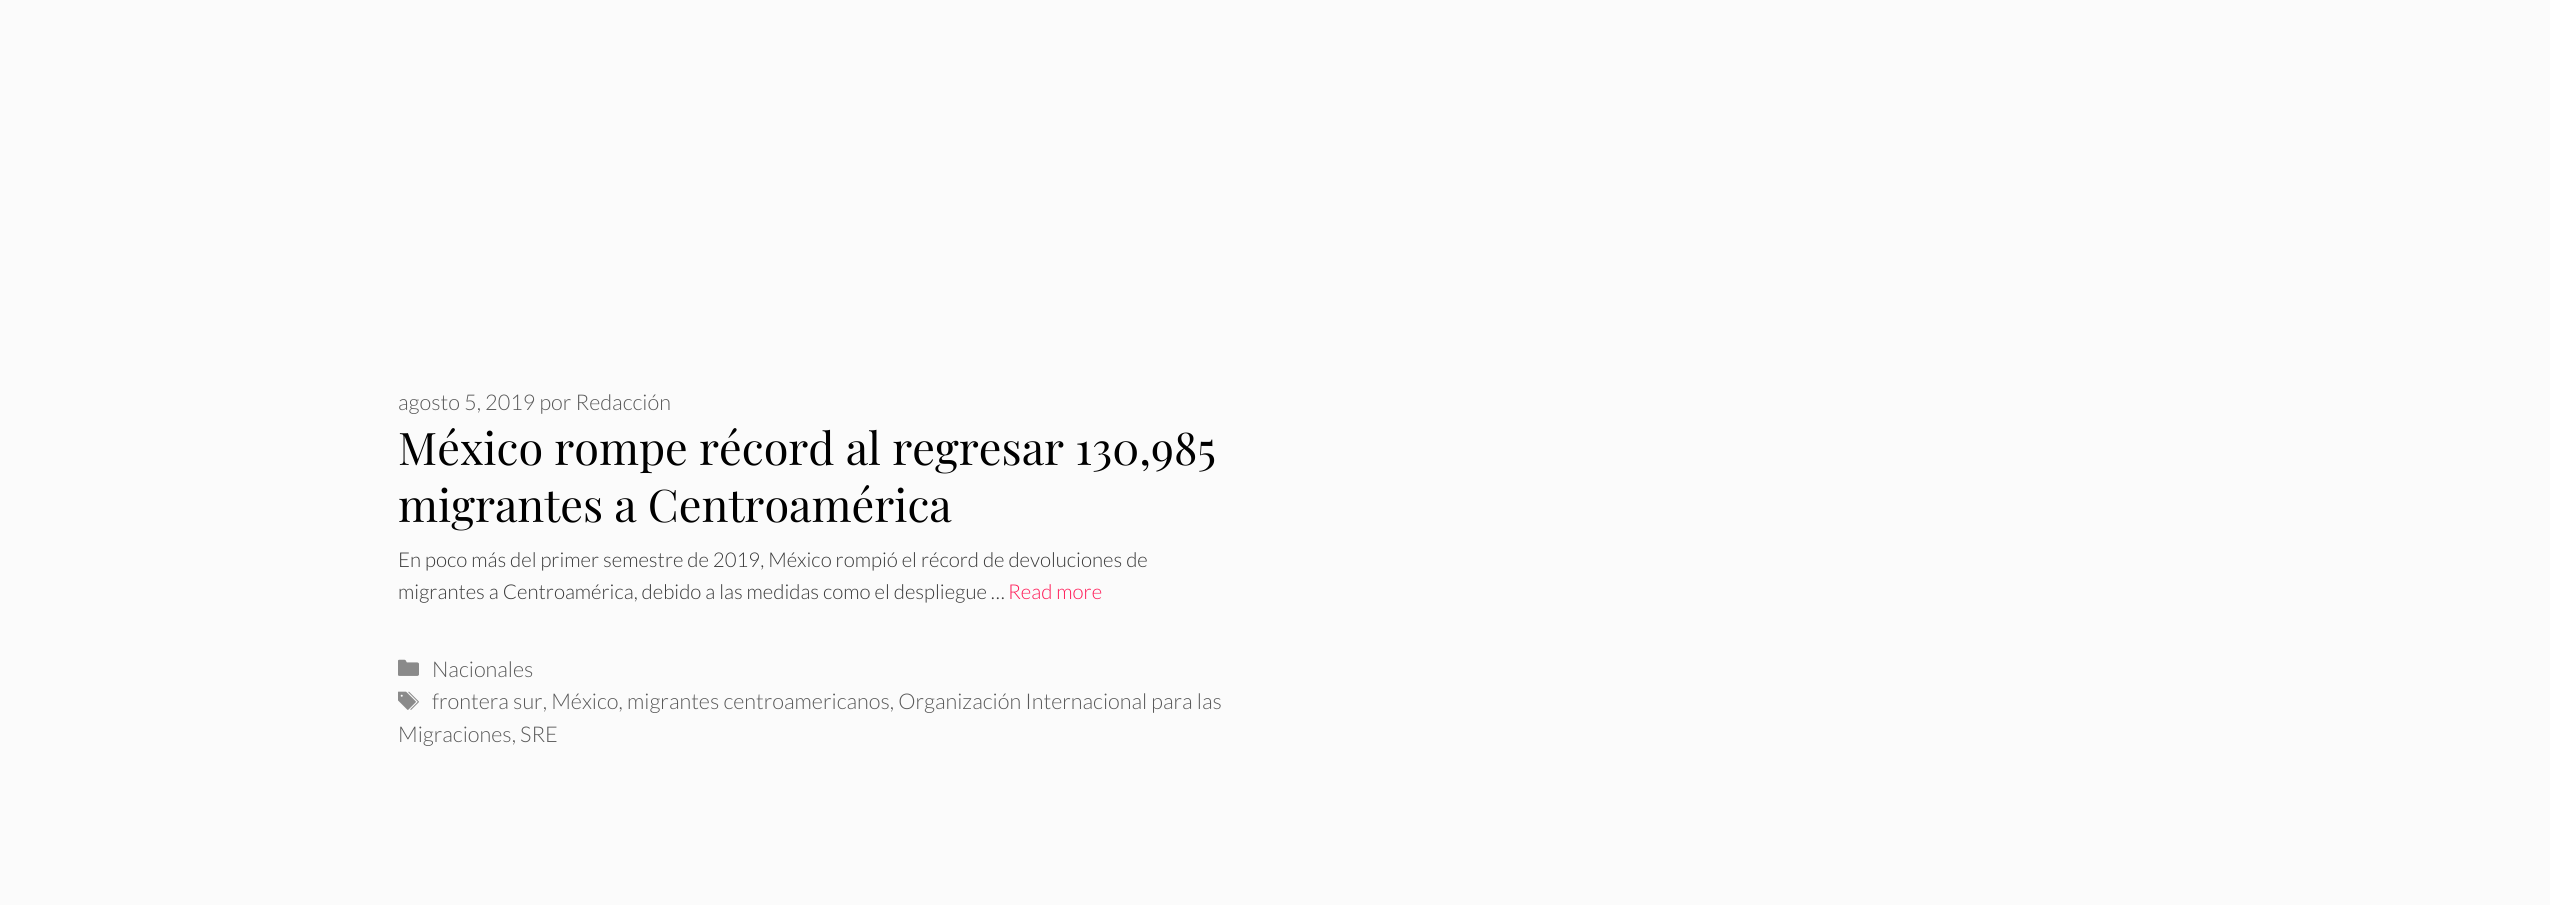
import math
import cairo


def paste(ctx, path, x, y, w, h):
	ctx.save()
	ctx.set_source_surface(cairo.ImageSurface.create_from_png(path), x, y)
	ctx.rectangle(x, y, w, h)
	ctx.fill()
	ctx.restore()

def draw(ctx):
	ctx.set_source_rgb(0.984, 0.984, 0.984)
	ctx.paint()
	ctx.select_font_face('Lato Light')
	ctx.set_font_size(21.65)
	ctx.set_source_rgb(0.349, 0.349, 0.349)
	ctx.move_to(398, 410)
	ctx.show_text('agosto 5, 2019 por Redacción')
	ctx.select_font_face('Playfair Display')
	ctx.set_font_size(45)
	ctx.set_source_rgb(0, 0, 0)
	ctx.move_to(398, 465)
	ctx.show_text('México rompe récord al regresar 130,985')
	ctx.move_to(398, 522)
	ctx.show_text('migrantes a Centroamérica')
	ctx.select_font_face('Lato Light')
	ctx.set_font_size(20.4)
	ctx.set_source_rgb(0.227, 0.227, 0.227)
	ctx.move_to(398, 567)
	ctx.show_text('En poco más del primer semestre de 2019, México rompió el récord de devoluciones de')
	ctx.move_to(398, 599)
	ctx.show_text('migrantes a Centroamérica, debido a las medidas como el despliegue …')
	ctx.set_source_rgb(1, 0.098, 0.337)
	ctx.move_to(1008, 599)
	ctx.show_text('Read more')
	paste(ctx, 'media/1.png', 398, 659, 21, 17)
	ctx.set_font_size(21.65)
	ctx.set_source_rgb(0.349, 0.349, 0.349)
	ctx.move_to(432, 677)
	ctx.show_text('Nacionales')
	paste(ctx, 'media/2.png', 398, 691, 21, 19)
	ctx.move_to(432, 709)
	ctx.show_text('frontera sur, México, migrantes centroamericanos, Organización Internacional para las')
	ctx.move_to(398, 742)
	ctx.show_text('Migraciones, SRE')


surface = cairo.ImageSurface(cairo.FORMAT_RGB24, 2550, 905)
ctx = cairo.Context(surface)
options = cairo.FontOptions()
options.set_hint_metrics(cairo.HINT_METRICS_OFF)
options.set_hint_style(cairo.HINT_STYLE_NONE)
ctx.set_font_options(options)
ctx.set_miter_limit(4)
draw(ctx)
surface.write_to_png('image.png')
